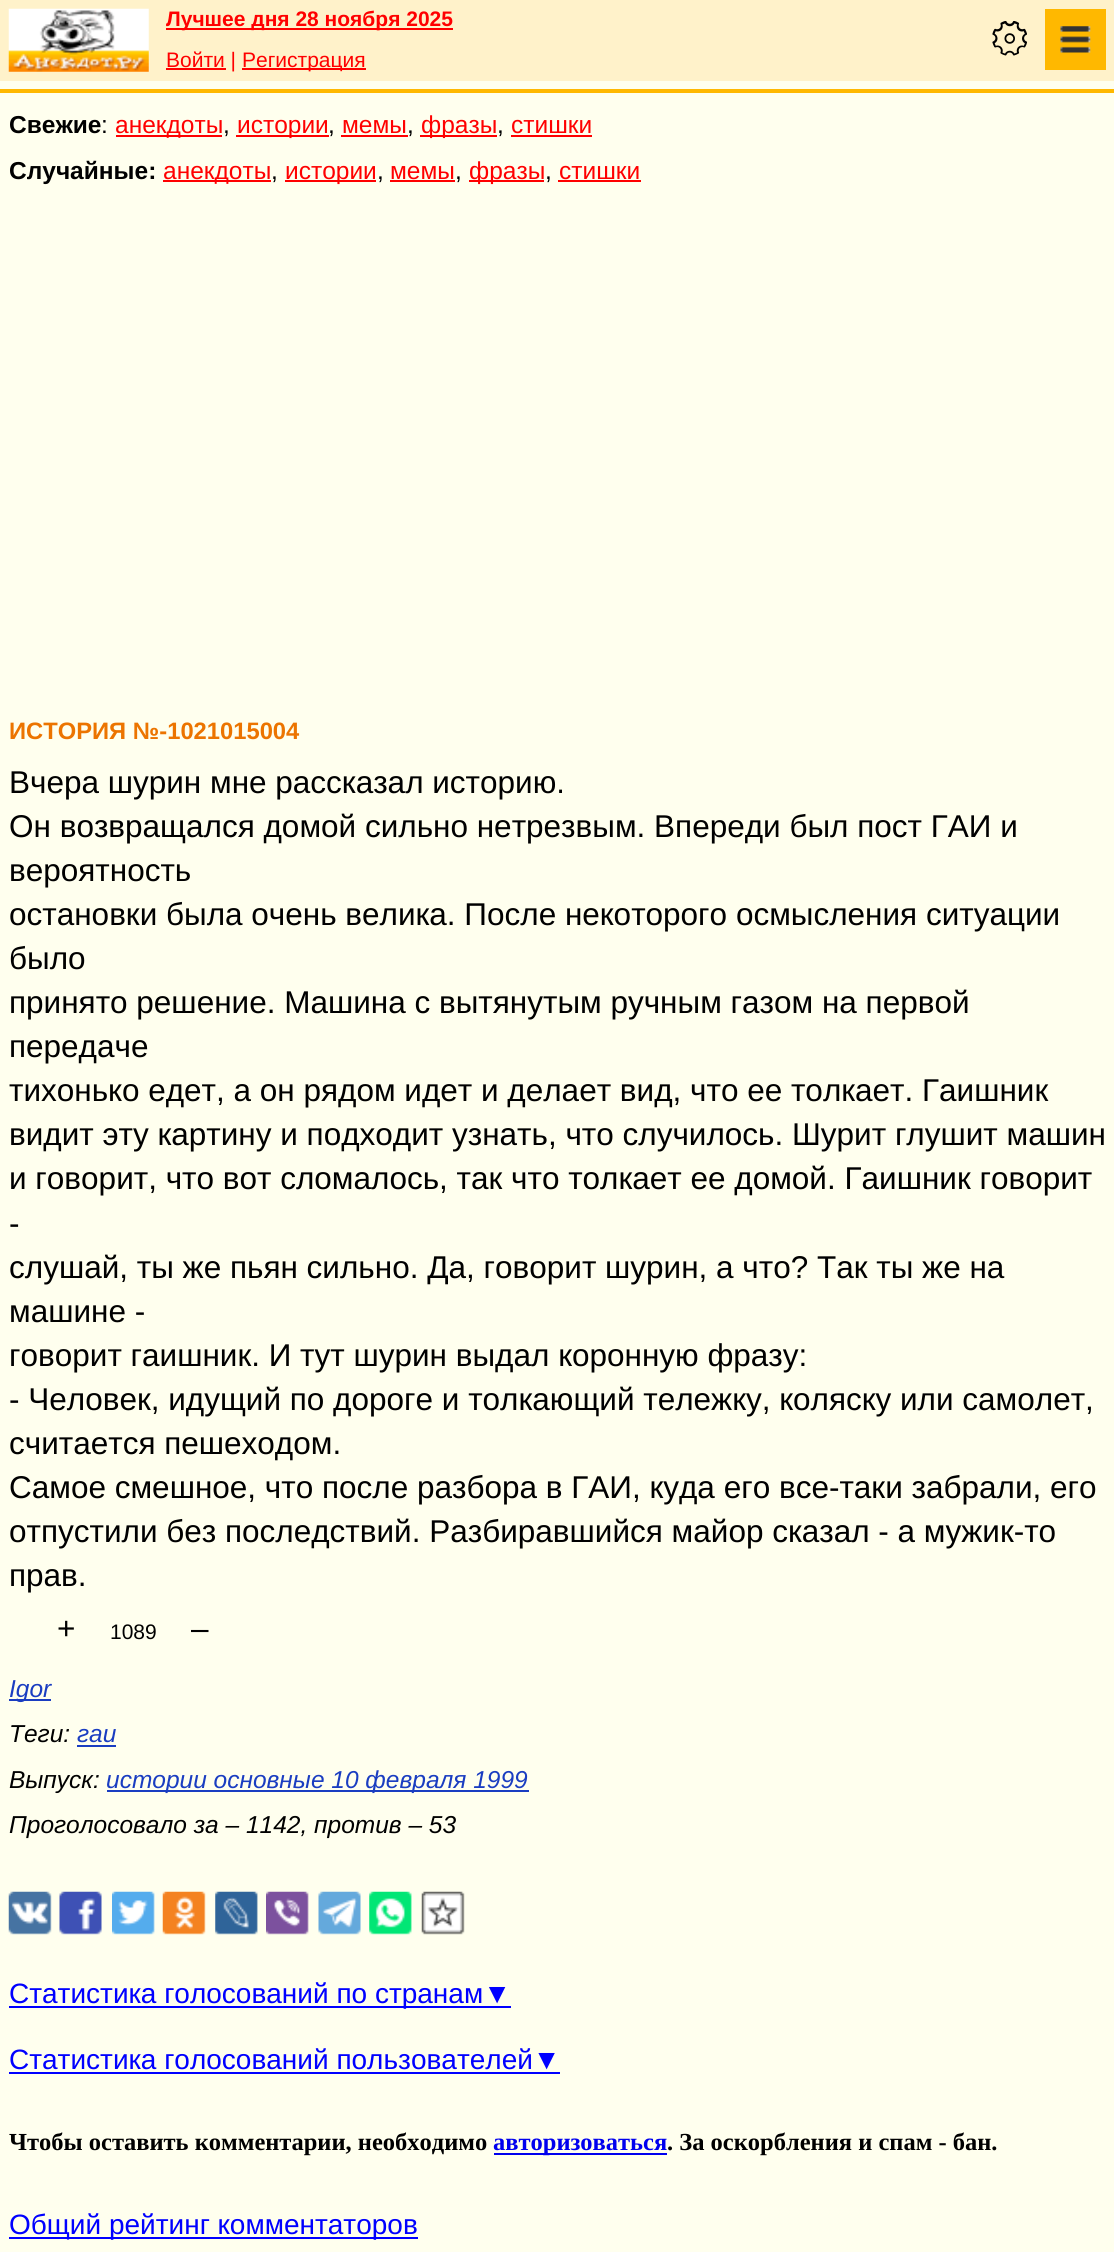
import math
import cairo


def paste(ctx, path, x, y, w, h):
	ctx.save()
	ctx.set_source_surface(cairo.ImageSurface.create_from_png(path), x, y)
	ctx.rectangle(x, y, w, h)
	ctx.fill()
	ctx.restore()

def draw(ctx):
	ctx.set_source_rgb(1, 1, 0.933)
	ctx.paint()
	ctx.set_source_rgb(1, 0.949, 0.792)
	ctx.rectangle(0, 0, 1114, 81)
	ctx.fill()
	paste(ctx, 'media/1.png', 8, 8, 141, 64)
	ctx.set_source_rgb(1, 0, 0)
	ctx.rectangle(166, 28, 287, 2)
	ctx.fill()
	ctx.select_font_face('Liberation Sans', cairo.FONT_SLANT_NORMAL, cairo.FONT_WEIGHT_BOLD)
	ctx.set_font_size(21)
	ctx.move_to(166, 26)
	ctx.show_text('Лучшее дня 28 ноября 2025')
	paste(ctx, 'media/2.png', 992, 21, 35, 35)
	ctx.set_source_rgb(1, 0.722, 0)
	ctx.rectangle(1045, 9, 61, 61)
	ctx.fill()
	paste(ctx, 'media/3.png', 1060, 26, 31, 27)
	ctx.set_source_rgb(1, 0, 0)
	ctx.rectangle(166, 68, 60, 2)
	ctx.fill()
	ctx.select_font_face('Liberation Sans')
	ctx.move_to(166, 67)
	ctx.show_text('Войти |')
	ctx.rectangle(242, 68, 124, 2)
	ctx.fill()
	ctx.move_to(242, 67)
	ctx.show_text('Регистрация')
	ctx.set_source_rgb(1, 0.722, 0)
	ctx.rectangle(0, 89, 1114, 4)
	ctx.fill()
	ctx.select_font_face('Liberation Sans', cairo.FONT_SLANT_NORMAL, cairo.FONT_WEIGHT_BOLD)
	ctx.set_font_size(24.5)
	ctx.set_source_rgb(0, 0, 0)
	ctx.move_to(9, 133)
	ctx.show_text('Свежие')
	ctx.select_font_face('Liberation Sans')
	ctx.move_to(101, 133)
	ctx.show_text(':')
	ctx.set_source_rgb(1, 0, 0)
	ctx.rectangle(116, 135, 106, 2)
	ctx.fill()
	ctx.move_to(115, 133)
	ctx.show_text('анекдоты')
	ctx.set_source_rgb(0, 0, 0)
	ctx.move_to(223, 133)
	ctx.show_text(',')
	ctx.set_source_rgb(1, 0, 0)
	ctx.rectangle(236, 135, 93, 2)
	ctx.fill()
	ctx.move_to(237, 133)
	ctx.show_text('истории')
	ctx.set_source_rgb(0, 0, 0)
	ctx.move_to(328, 133)
	ctx.show_text(',')
	ctx.set_source_rgb(1, 0, 0)
	ctx.move_to(342, 133)
	ctx.show_text('мемы')
	ctx.rectangle(341, 135, 67, 2)
	ctx.fill()
	ctx.set_source_rgb(0, 0, 0)
	ctx.move_to(407, 133)
	ctx.show_text(',')
	ctx.set_source_rgb(1, 0, 0)
	ctx.rectangle(420, 135, 77, 2)
	ctx.fill()
	ctx.move_to(421, 133)
	ctx.show_text('фразы')
	ctx.set_source_rgb(0, 0, 0)
	ctx.move_to(497, 133)
	ctx.show_text(',')
	ctx.set_source_rgb(1, 0, 0)
	ctx.move_to(511, 133)
	ctx.show_text('стишки')
	ctx.rectangle(511, 135, 81, 2)
	ctx.fill()
	ctx.select_font_face('Liberation Sans', cairo.FONT_SLANT_NORMAL, cairo.FONT_WEIGHT_BOLD)
	ctx.set_source_rgb(0, 0, 0)
	ctx.move_to(9, 179)
	ctx.show_text('Случайные:')
	ctx.set_source_rgb(1, 0, 0)
	ctx.rectangle(163, 180, 108, 2)
	ctx.fill()
	ctx.select_font_face('Liberation Sans')
	ctx.move_to(163, 179)
	ctx.show_text('анекдоты')
	ctx.set_source_rgb(0, 0, 0)
	ctx.move_to(271, 179)
	ctx.show_text(',')
	ctx.set_source_rgb(1, 0, 0)
	ctx.rectangle(285, 180, 91, 2)
	ctx.fill()
	ctx.move_to(285, 179)
	ctx.show_text('истории')
	ctx.set_source_rgb(0, 0, 0)
	ctx.move_to(377, 179)
	ctx.show_text(',')
	ctx.set_source_rgb(1, 0, 0)
	ctx.move_to(390, 179)
	ctx.show_text('мемы')
	ctx.rectangle(390, 180, 65, 2)
	ctx.fill()
	ctx.set_source_rgb(0, 0, 0)
	ctx.move_to(455, 179)
	ctx.show_text(',')
	ctx.set_source_rgb(1, 0, 0)
	ctx.rectangle(469, 180, 75, 2)
	ctx.fill()
	ctx.move_to(469, 179)
	ctx.show_text('фразы')
	ctx.set_source_rgb(0, 0, 0)
	ctx.move_to(545, 179)
	ctx.show_text(',')
	ctx.set_source_rgb(1, 0, 0)
	ctx.move_to(559, 179)
	ctx.show_text('стишки')
	ctx.rectangle(558, 180, 83, 2)
	ctx.fill()
	ctx.select_font_face('Liberation Sans', cairo.FONT_SLANT_NORMAL, cairo.FONT_WEIGHT_BOLD)
	ctx.set_font_size(23.75)
	ctx.set_source_rgb(0.922, 0.455, 0)
	ctx.move_to(9, 739)
	ctx.show_text('ИСТОРИЯ №-1021015004')
	ctx.select_font_face('Liberation Sans')
	ctx.set_font_size(31.5)
	ctx.set_source_rgb(0, 0, 0)
	for x, y, s in [
		(9, 793, 'Вчера шурин мне рассказал историю.'),
		(9, 837, 'Он возвращался домой сильно нетрезвым. Впереди был пост ГАИ и'),
		(9, 881, 'вероятность'),
		(9, 925, 'остановки была очень велика. После некоторого осмысления ситуации'),
		(9, 969, 'было'),
		(9, 1013, 'принято решение. Машина с вытянутым ручным газом на первой'),
		(9, 1057, 'передаче'),
		(9, 1101, 'тихонько едет, а он рядом идет и делает вид, что ее толкает. Гаишник'),
		(9, 1145, 'видит эту картину и подходит узнать, что случилось. Шурит глушит машин'),
		(9, 1189, 'и говорит, что вот сломалось, так что толкает ее домой. Гаишник говорит'),
		(9, 1234, '-'),
		(9, 1278, 'слушай, ты же пьян сильно. Да, говорит шурин, а что? Так ты же на'),
		(9, 1322, 'машине -'),
		(9, 1366, 'говорит гаишник. И тут шурин выдал коронную фразу:'),
		(9, 1410, '- Человек, идущий по дороге и толкающий тележку, коляску или самолет,'),
		(9, 1454, 'считается пешеходом.'),
		(9, 1498, 'Самое смешное, что после разбора в ГАИ, куда его все-таки забрали, его'),
		(9, 1542, 'отпустили без последствий. Разбиравшийся майор сказал - а мужик-то'),
		(9, 1586, 'прав.'),
		(57, 1639, '+'),
	]:
		ctx.move_to(x, y)
		ctx.show_text(s)
	ctx.set_font_size(21)
	ctx.move_to(110, 1639)
	ctx.show_text('1089')
	ctx.set_font_size(31.5)
	ctx.move_to(191, 1639)
	ctx.show_text('–')
	ctx.set_source_rgb(0.102, 0.239, 0.757)
	ctx.rectangle(9, 1699, 42, 2)
	ctx.fill()
	ctx.select_font_face('Liberation Sans', cairo.FONT_SLANT_ITALIC)
	ctx.set_font_size(24.5)
	ctx.move_to(9, 1697)
	ctx.show_text('Igor')
	ctx.set_source_rgb(0, 0, 0)
	ctx.move_to(9, 1742)
	ctx.show_text('Теги:')
	ctx.set_source_rgb(0.102, 0.239, 0.757)
	ctx.move_to(77, 1742)
	ctx.show_text('гаи')
	ctx.rectangle(77, 1745, 39, 2)
	ctx.fill()
	ctx.set_source_rgb(0, 0, 0)
	ctx.move_to(9, 1788)
	ctx.show_text('Выпуск:')
	ctx.set_source_rgb(0.102, 0.239, 0.757)
	ctx.rectangle(107, 1790, 422, 2)
	ctx.fill()
	ctx.move_to(106, 1788)
	ctx.show_text('истории основные 10 февраля 1999')
	ctx.set_source_rgb(0, 0, 0)
	ctx.move_to(9, 1833)
	ctx.show_text('Проголосовало за – 1142, против – 53')
	paste(ctx, 'media/4.png', 8, 1891, 44, 44)
	paste(ctx, 'media/5.png', 59, 1891, 43, 44)
	paste(ctx, 'media/6.png', 112, 1891, 43, 44)
	paste(ctx, 'media/7.png', 162, 1891, 44, 44)
	paste(ctx, 'media/8.png', 215, 1891, 43, 44)
	paste(ctx, 'media/9.png', 266, 1891, 43, 44)
	paste(ctx, 'media/10.png', 318, 1891, 43, 44)
	paste(ctx, 'media/11.png', 369, 1891, 43, 44)
	paste(ctx, 'media/12.png', 421, 1891, 44, 44)
	ctx.set_source_rgb(0, 0, 1)
	ctx.rectangle(9, 2006, 502, 2)
	ctx.fill()
	ctx.select_font_face('Liberation Sans')
	ctx.set_font_size(28)
	ctx.move_to(9, 2003)
	ctx.show_text('Статистика голосований по странам▼')
	ctx.move_to(9, 2069)
	ctx.show_text('Статистика голосований пользователей▼')
	ctx.rectangle(9, 2072, 551, 2)
	ctx.fill()
	ctx.select_font_face('Liberation Serif', cairo.FONT_SLANT_NORMAL, cairo.FONT_WEIGHT_BOLD)
	ctx.set_font_size(24.5)
	ctx.set_source_rgb(0, 0, 0)
	ctx.move_to(9, 2150)
	ctx.show_text('Чтобы оставить комментарии, необходимо')
	ctx.set_source_rgb(0, 0, 0.933)
	ctx.rectangle(494, 2153, 173, 2)
	ctx.fill()
	ctx.move_to(493, 2150)
	ctx.show_text('авторизоваться')
	ctx.set_source_rgb(0, 0, 0)
	ctx.move_to(667, 2150)
	ctx.show_text('. За оскорбления и спам - бан.')
	ctx.set_source_rgb(0, 0, 1)
	ctx.rectangle(9, 2237, 409, 2)
	ctx.fill()
	ctx.select_font_face('Liberation Sans')
	ctx.set_font_size(28)
	ctx.move_to(9, 2234)
	ctx.show_text('Общий рейтинг комментаторов')


surface = cairo.ImageSurface(cairo.FORMAT_RGB24, 1114, 2252)
ctx = cairo.Context(surface)
options = cairo.FontOptions()
options.set_hint_metrics(cairo.HINT_METRICS_OFF)
options.set_hint_style(cairo.HINT_STYLE_NONE)
ctx.set_font_options(options)
ctx.set_miter_limit(4)
draw(ctx)
surface.write_to_png('image.png')
